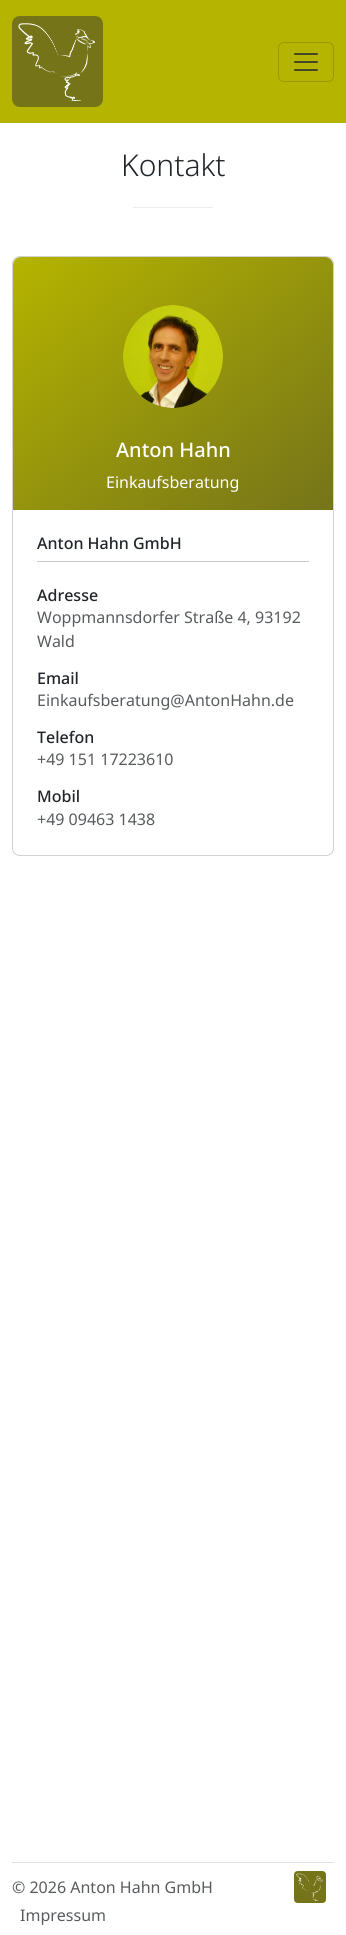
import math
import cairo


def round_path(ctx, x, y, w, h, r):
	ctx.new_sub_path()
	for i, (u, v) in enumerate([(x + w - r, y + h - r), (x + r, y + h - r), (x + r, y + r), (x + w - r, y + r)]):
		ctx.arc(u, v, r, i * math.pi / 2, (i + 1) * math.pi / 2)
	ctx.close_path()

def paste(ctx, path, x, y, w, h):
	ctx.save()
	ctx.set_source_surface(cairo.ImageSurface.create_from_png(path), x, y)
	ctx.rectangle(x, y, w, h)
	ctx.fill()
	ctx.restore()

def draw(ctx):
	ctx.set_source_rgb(1, 1, 1)
	ctx.paint()
	ctx.set_source_rgb(0.71, 0.706, 0)
	ctx.rectangle(0, 0, 346, 123)
	ctx.fill()
	paste(ctx, 'media/1.png', 12, 16, 91, 91)
	round_path(ctx, 278.5, 42.5, 55, 39, 5.5)
	ctx.set_source_rgb(0.604, 0.6, 0)
	ctx.set_line_width(1)
	ctx.stroke()
	paste(ctx, 'media/2.png', 294, 53, 24, 18)
	ctx.select_font_face('Noto Sans Light')
	ctx.set_font_size(30)
	ctx.set_source_rgb(0.129, 0.145, 0.161)
	ctx.move_to(121, 176)
	ctx.show_text('Kontakt')
	ctx.set_source_rgb(0.922, 0.929, 0.937)
	ctx.rectangle(133, 207, 80, 1)
	ctx.fill()
	round_path(ctx, 12.5, 256.5, 321, 599, 7.5)
	ctx.set_source_rgb(0.824, 0.824, 0.824)
	ctx.stroke()
	gradient = cairo.LinearGradient(50, 228, 296, 539)
	gradient.add_color_stop_rgba(0, 0.71, 0.706, 0, 1)
	gradient.add_color_stop_rgba(1, 0.459, 0.455, 0.102, 1)
	ctx.set_source(gradient)
	ctx.new_path()
	ctx.move_to(21, 257)
	ctx.line_to(325, 257)
	ctx.curve_to(329.5, 257, 333, 260.5, 333, 265)
	ctx.line_to(333, 510)
	ctx.line_to(13, 510)
	ctx.line_to(13, 265)
	ctx.curve_to(13, 260.5, 16.5, 257, 21, 257)
	ctx.close_path()
	ctx.fill()
	paste(ctx, 'media/3.png', 123, 305, 100, 103)
	ctx.select_font_face('Noto Sans Medium')
	ctx.set_font_size(20)
	ctx.set_source_rgb(1, 1, 1)
	ctx.move_to(116, 457)
	ctx.show_text('Anton Hahn')
	ctx.select_font_face('Noto Sans')
	ctx.set_font_size(16)
	ctx.move_to(106, 488)
	ctx.show_text('Einkaufsberatung')
	ctx.select_font_face('Noto Sans Medium')
	ctx.set_source_rgb(0.129, 0.145, 0.161)
	ctx.move_to(37, 549)
	ctx.show_text('Anton Hahn GmbH')
	ctx.set_source_rgb(0.784, 0.788, 0.792)
	ctx.rectangle(37, 561, 272, 1)
	ctx.fill()
	ctx.set_source_rgb(0.129, 0.145, 0.161)
	ctx.move_to(37, 601)
	ctx.show_text('Adresse')
	ctx.select_font_face('Noto Sans')
	ctx.set_source_rgb(0.349, 0.361, 0.373)
	ctx.move_to(37, 623)
	ctx.show_text('Woppmannsdorfer Straße 4, 93192')
	ctx.move_to(37, 647)
	ctx.show_text('Wald')
	ctx.select_font_face('Noto Sans Medium')
	ctx.set_source_rgb(0.129, 0.145, 0.161)
	ctx.move_to(37, 684)
	ctx.show_text('Email')
	ctx.select_font_face('Noto Sans')
	ctx.set_source_rgb(0.349, 0.361, 0.373)
	ctx.move_to(37, 706)
	ctx.show_text('Einkaufsberatung@AntonHahn.de')
	ctx.select_font_face('Noto Sans Medium')
	ctx.set_source_rgb(0.129, 0.145, 0.161)
	ctx.move_to(37, 743)
	ctx.show_text('Telefon')
	ctx.select_font_face('Noto Sans')
	ctx.set_source_rgb(0.349, 0.361, 0.373)
	ctx.move_to(37, 765)
	ctx.show_text('+49 151 17223610')
	ctx.select_font_face('Noto Sans Medium')
	ctx.set_source_rgb(0.129, 0.145, 0.161)
	ctx.move_to(37, 802)
	ctx.show_text('Mobil')
	ctx.select_font_face('Noto Sans')
	ctx.set_source_rgb(0.349, 0.361, 0.373)
	ctx.move_to(37, 825)
	ctx.show_text('+49 09463 1438')
	ctx.set_source_rgb(0.871, 0.886, 0.902)
	ctx.rectangle(12, 1862, 322, 1)
	ctx.fill()
	ctx.set_source_rgb(0.349, 0.361, 0.373)
	ctx.move_to(12, 1893)
	ctx.show_text('© 2026 Anton Hahn GmbH')
	paste(ctx, 'media/4.png', 294, 1871, 32, 32)
	ctx.move_to(20, 1921)
	ctx.show_text('Impressum')


surface = cairo.ImageSurface(cairo.FORMAT_RGB24, 346, 1935)
ctx = cairo.Context(surface)
options = cairo.FontOptions()
options.set_hint_metrics(cairo.HINT_METRICS_OFF)
options.set_hint_style(cairo.HINT_STYLE_NONE)
ctx.set_font_options(options)
ctx.set_miter_limit(4)
draw(ctx)
surface.write_to_png('image.png')
